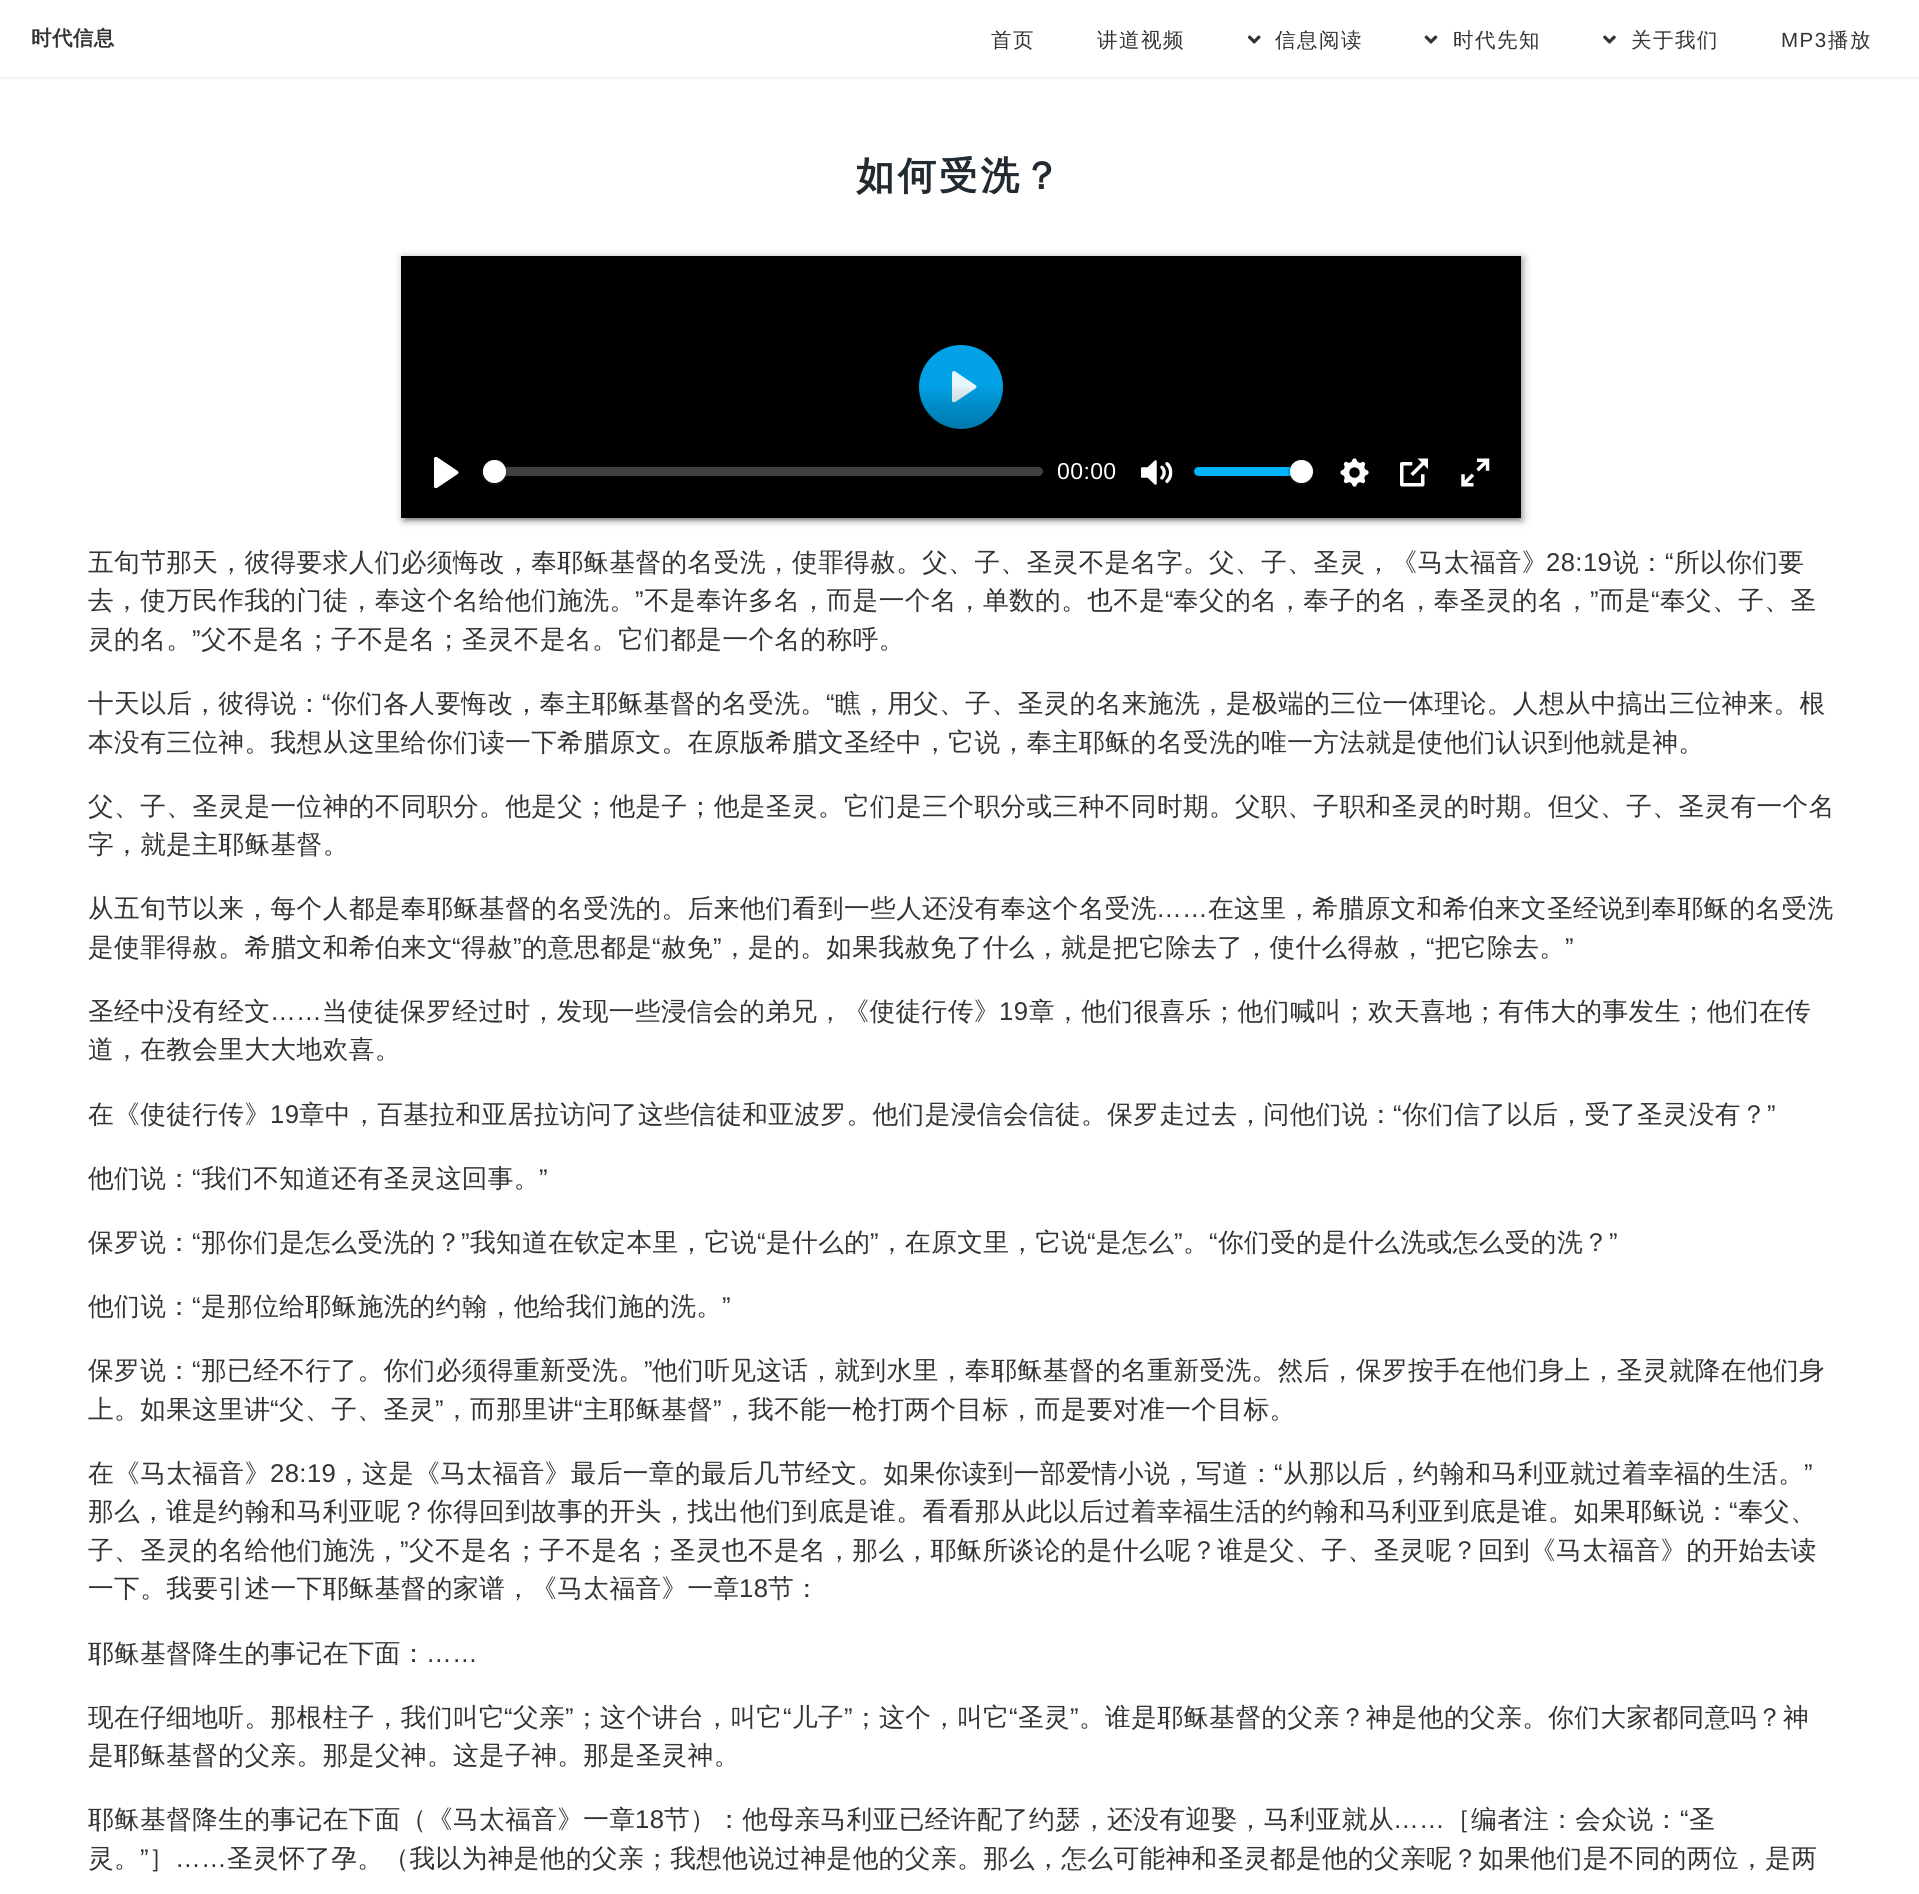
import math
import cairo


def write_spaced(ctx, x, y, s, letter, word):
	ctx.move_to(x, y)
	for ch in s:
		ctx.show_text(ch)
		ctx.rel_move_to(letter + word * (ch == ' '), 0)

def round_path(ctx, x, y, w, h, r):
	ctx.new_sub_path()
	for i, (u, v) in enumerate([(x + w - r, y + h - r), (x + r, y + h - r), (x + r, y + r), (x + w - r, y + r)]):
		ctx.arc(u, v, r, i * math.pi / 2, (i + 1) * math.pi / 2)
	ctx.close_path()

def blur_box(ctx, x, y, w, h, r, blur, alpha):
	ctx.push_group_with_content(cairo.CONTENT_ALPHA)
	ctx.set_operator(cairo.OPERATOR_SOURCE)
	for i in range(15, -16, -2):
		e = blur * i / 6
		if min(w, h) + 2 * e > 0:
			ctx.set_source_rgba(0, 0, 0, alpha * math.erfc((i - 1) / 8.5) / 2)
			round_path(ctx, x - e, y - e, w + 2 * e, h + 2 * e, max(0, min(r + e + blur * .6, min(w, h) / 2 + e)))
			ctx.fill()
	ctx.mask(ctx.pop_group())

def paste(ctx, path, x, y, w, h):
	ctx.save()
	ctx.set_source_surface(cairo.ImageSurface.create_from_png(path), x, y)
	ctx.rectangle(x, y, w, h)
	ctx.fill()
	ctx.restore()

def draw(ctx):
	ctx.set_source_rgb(1, 1, 1)
	ctx.paint()
	ctx.save()
	ctx.rectangle(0, 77, 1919, 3)
	ctx.clip()
	ctx.set_source_rgb(0, 0, 0)
	blur_box(ctx, 0, 2, 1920, 77, 0, 2, 0.07)
	ctx.restore()
	ctx.select_font_face('WenQuanYi Zen Hei', cairo.FONT_SLANT_NORMAL, cairo.FONT_WEIGHT_BOLD)
	ctx.set_font_size(20.5)
	ctx.set_source_rgb(0.2, 0.2, 0.2)
	write_spaced(ctx, 31, 45, '时代信息', 0.4, 0)
	ctx.select_font_face('WenQuanYi Zen Hei Medium')
	write_spaced(ctx, 991, 47, '首页', 1.5, 0)
	write_spaced(ctx, 1097, 47, '讲道视频', 1.5, 0)
	paste(ctx, 'media/1.png', 1247, 35, 14, 9)
	write_spaced(ctx, 1275, 47, '信息阅读', 1.5, 0)
	paste(ctx, 'media/2.png', 1424, 35, 14, 9)
	write_spaced(ctx, 1453, 47, '时代先知', 1.5, 0)
	paste(ctx, 'media/3.png', 1603, 35, 13, 9)
	write_spaced(ctx, 1631, 47, '关于我们', 1.5, 0)
	ctx.select_font_face('Liberation Sans')
	write_spaced(ctx, 1781, 47, 'MP3', 1.5, 0)
	ctx.select_font_face('WenQuanYi Zen Hei Medium')
	write_spaced(ctx, 1828, 47, '播放', 1.5, 0)
	ctx.select_font_face('WenQuanYi Zen Hei', cairo.FONT_SLANT_NORMAL, cairo.FONT_WEIGHT_BOLD)
	ctx.set_font_size(38.5)
	ctx.set_source_rgb(0.129, 0.161, 0.192)
	write_spaced(ctx, 856, 189, '如何受洗？', 3, 0)
	ctx.set_source_rgb(0, 0, 0)
	blur_box(ctx, 403, 257, 1120, 263, 0, 4.5, 0.3)
	blur_box(ctx, 406, 264, 1113, 256, 0, 1, 0.2)
	blur_box(ctx, 403, 259, 1120, 263, 0, 2, 0.14)
	ctx.set_source_rgb(0, 0, 0)
	ctx.rectangle(401, 256, 1120, 262)
	ctx.fill()
	ctx.set_source_rgb(0, 0.631, 0.902)
	ctx.arc(961, 387, 42, 0, 2 * math.pi)
	ctx.fill()
	paste(ctx, 'media/4.png', 952, 371, 25, 32)
	paste(ctx, 'media/5.png', 481, 459, 833, 26)
	gradient = cairo.LinearGradient(961, 383, 961, 518)
	gradient.add_color_stop_rgba(0, 0, 0, 0, 0)
	gradient.add_color_stop_rgba(1, 0, 0, 0, 0.75)
	ctx.set_source(gradient)
	ctx.rectangle(482, 387, 832, 98)
	ctx.fill()
	paste(ctx, 'media/6.png', 434, 456, 25, 33)
	ctx.set_source_rgba(1, 1, 1, 0.25)
	round_path(ctx, 483, 467, 560, 9, 4.5)
	ctx.fill()
	round_path(ctx, 482, 460, 25, 24, 12)
	ctx.set_source_rgba(0.137, 0.157, 0.184, 0.2)
	ctx.stroke()
	ctx.set_source_rgb(0.137, 0.157, 0.184)
	blur_box(ctx, 483, 462, 23, 23, 11.5, 1, 0.15)
	ctx.set_source_rgb(1, 1, 1)
	ctx.arc(494.5, 471.5, 11.5, 0, 2 * math.pi)
	ctx.fill()
	ctx.select_font_face('Liberation Sans')
	ctx.set_font_size(23)
	write_spaced(ctx, 1057, 479, '00:00', 0.4, 0)
	paste(ctx, 'media/7.png', 1141, 460, 32, 25)
	ctx.set_source_rgb(0, 0.702, 1)
	round_path(ctx, 1194, 467, 119, 9, 4.5)
	ctx.fill()
	ctx.arc(1301, 472, 12, 0, 2 * math.pi)
	ctx.set_source_rgba(0.137, 0.157, 0.184, 0.2)
	ctx.stroke()
	ctx.set_source_rgb(0.137, 0.157, 0.184)
	blur_box(ctx, 1290, 462, 23, 23, 11.5, 1, 0.15)
	ctx.set_source_rgb(1, 1, 1)
	ctx.arc(1301.5, 471.5, 11.5, 0, 2 * math.pi)
	ctx.fill()
	paste(ctx, 'media/8.png', 1340, 458, 29, 29)
	paste(ctx, 'media/9.png', 1400, 458, 28, 29)
	paste(ctx, 'media/10.png', 1461, 458, 29, 29)
	ctx.select_font_face('WenQuanYi Zen Hei Medium')
	ctx.set_font_size(25.67)
	ctx.set_source_rgb(0.2, 0.2, 0.2)
	write_spaced(ctx, 88, 571, '五旬节那天，彼得要求人们必须悔改，奉耶稣基督的名受洗，使罪得赦。父、子、圣灵不是名字。父、子、圣灵，《马太福音》', 0.4, 0)
	ctx.select_font_face('Liberation Sans')
	write_spaced(ctx, 1546, 571, '28:19', 0.4, 0)
	ctx.select_font_face('WenQuanYi Zen Hei Medium')
	write_spaced(ctx, 1613, 571, '说：', 0.4, 0)
	ctx.select_font_face('Liberation Sans')
	write_spaced(ctx, 1665, 571, '“', 0.4, 0)
	ctx.select_font_face('WenQuanYi Zen Hei Medium')
	write_spaced(ctx, 1674, 571, '所以你们要', 0.4, 0)
	write_spaced(ctx, 88, 609, '去，使万民作我的门徒，奉这个名给他们施洗。', 0.4, 0)
	ctx.select_font_face('Liberation Sans')
	write_spaced(ctx, 635, 609, '”', 0.4, 0)
	ctx.select_font_face('WenQuanYi Zen Hei Medium')
	write_spaced(ctx, 644, 609, '不是奉许多名，而是一个名，单数的。也不是', 0.4, 0)
	ctx.select_font_face('Liberation Sans')
	write_spaced(ctx, 1165, 609, '“', 0.4, 0)
	ctx.select_font_face('WenQuanYi Zen Hei Medium')
	write_spaced(ctx, 1173, 609, '奉父的名，奉子的名，奉圣灵的名，', 0.4, 0)
	ctx.select_font_face('Liberation Sans')
	write_spaced(ctx, 1590, 609, '”', 0.4, 0)
	ctx.select_font_face('WenQuanYi Zen Hei Medium')
	write_spaced(ctx, 1599, 609, '而是', 0.4, 0)
	ctx.select_font_face('Liberation Sans')
	write_spaced(ctx, 1651, 609, '“', 0.4, 0)
	ctx.select_font_face('WenQuanYi Zen Hei Medium')
	write_spaced(ctx, 1660, 609, '奉父、子、圣', 0.4, 0)
	write_spaced(ctx, 88, 648, '灵的名。', 0.4, 0)
	ctx.select_font_face('Liberation Sans')
	write_spaced(ctx, 192, 648, '”', 0.4, 0)
	ctx.select_font_face('WenQuanYi Zen Hei Medium')
	write_spaced(ctx, 201, 648, '父不是名；子不是名；圣灵不是名。它们都是一个名的称呼。', 0.4, 0)
	write_spaced(ctx, 88, 712, '十天以后，彼得说：', 0.4, 0)
	ctx.select_font_face('Liberation Sans')
	write_spaced(ctx, 322, 712, '“', 0.4, 0)
	ctx.select_font_face('WenQuanYi Zen Hei Medium')
	write_spaced(ctx, 331, 712, '你们各人要悔改，奉主耶稣基督的名受洗。', 0.4, 0)
	ctx.select_font_face('Liberation Sans')
	write_spaced(ctx, 826, 712, '“', 0.4, 0)
	ctx.select_font_face('WenQuanYi Zen Hei Medium')
	for x, y, s in [
		(835, 712, '瞧，用父、子、圣灵的名来施洗，是极端的三位一体理论。人想从中搞出三位神来。根'),
		(88, 751, '本没有三位神。我想从这里给你们读一下希腊原文。在原版希腊文圣经中，它说，奉主耶稣的名受洗的唯一方法就是使他们认识到他就是神。'),
		(88, 815, '父、子、圣灵是一位神的不同职分。他是父；他是子；他是圣灵。它们是三个职分或三种不同时期。父职、子职和圣灵的时期。但父、子、圣灵有一个名'),
		(88, 853, '字，就是主耶稣基督。'),
		(88, 917, '从五旬节以来，每个人都是奉耶稣基督的名受洗的。后来他们看到一些人还没有奉这个名受洗'),
	]:
		write_spaced(ctx, x, y, s, 0.4, 0)
	ctx.select_font_face('Liberation Sans')
	write_spaced(ctx, 1156, 917, '……', 0.4, 0)
	ctx.select_font_face('WenQuanYi Zen Hei Medium')
	write_spaced(ctx, 1208, 917, '在这里，希腊原文和希伯来文圣经说到奉耶稣的名受洗', 0.4, 0)
	write_spaced(ctx, 88, 956, '是使罪得赦。希腊文和希伯来文', 0.4, 0)
	ctx.select_font_face('Liberation Sans')
	write_spaced(ctx, 452, 956, '“', 0.4, 0)
	ctx.select_font_face('WenQuanYi Zen Hei Medium')
	write_spaced(ctx, 461, 956, '得赦', 0.4, 0)
	ctx.select_font_face('Liberation Sans')
	write_spaced(ctx, 513, 956, '”', 0.4, 0)
	ctx.select_font_face('WenQuanYi Zen Hei Medium')
	write_spaced(ctx, 522, 956, '的意思都是', 0.4, 0)
	ctx.select_font_face('Liberation Sans')
	write_spaced(ctx, 652, 956, '“', 0.4, 0)
	ctx.select_font_face('WenQuanYi Zen Hei Medium')
	write_spaced(ctx, 661, 956, '赦免', 0.4, 0)
	ctx.select_font_face('Liberation Sans')
	write_spaced(ctx, 713, 956, '”', 0.4, 0)
	ctx.select_font_face('WenQuanYi Zen Hei Medium')
	write_spaced(ctx, 722, 956, '，是的。如果我赦免了什么，就是把它除去了，使什么得赦，', 0.4, 0)
	ctx.select_font_face('Liberation Sans')
	write_spaced(ctx, 1426, 956, '“', 0.4, 0)
	ctx.select_font_face('WenQuanYi Zen Hei Medium')
	write_spaced(ctx, 1435, 956, '把它除去。', 0.4, 0)
	ctx.select_font_face('Liberation Sans')
	write_spaced(ctx, 1565, 956, '”', 0.4, 0)
	ctx.select_font_face('WenQuanYi Zen Hei Medium')
	write_spaced(ctx, 88, 1020, '圣经中没有经文', 0.4, 0)
	ctx.select_font_face('Liberation Sans')
	write_spaced(ctx, 270, 1020, '……', 0.4, 0)
	ctx.select_font_face('WenQuanYi Zen Hei Medium')
	write_spaced(ctx, 322, 1020, '当使徒保罗经过时，发现一些浸信会的弟兄，《使徒行传》', 0.4, 0)
	ctx.select_font_face('Liberation Sans')
	write_spaced(ctx, 999, 1020, '19', 0.4, 0)
	ctx.select_font_face('WenQuanYi Zen Hei Medium')
	for x, y, s in [
		(1029, 1020, '章，他们很喜乐；他们喊叫；欢天喜地；有伟大的事发生；他们在传'),
		(88, 1058, '道，在教会里大大地欢喜。'),
		(88, 1123, '在《使徒行传》'),
	]:
		write_spaced(ctx, x, y, s, 0.4, 0)
	ctx.select_font_face('Liberation Sans')
	write_spaced(ctx, 270, 1123, '19', 0.4, 0)
	ctx.select_font_face('WenQuanYi Zen Hei Medium')
	write_spaced(ctx, 299, 1123, '章中，百基拉和亚居拉访问了这些信徒和亚波罗。他们是浸信会信徒。保罗走过去，问他们说：', 0.4, 0)
	ctx.select_font_face('Liberation Sans')
	write_spaced(ctx, 1393, 1123, '“', 0.4, 0)
	ctx.select_font_face('WenQuanYi Zen Hei Medium')
	write_spaced(ctx, 1402, 1123, '你们信了以后，受了圣灵没有？', 0.4, 0)
	ctx.select_font_face('Liberation Sans')
	write_spaced(ctx, 1767, 1123, '”', 0.4, 0)
	ctx.select_font_face('WenQuanYi Zen Hei Medium')
	write_spaced(ctx, 88, 1187, '他们说：', 0.4, 0)
	ctx.select_font_face('Liberation Sans')
	write_spaced(ctx, 192, 1187, '“', 0.4, 0)
	ctx.select_font_face('WenQuanYi Zen Hei Medium')
	write_spaced(ctx, 201, 1187, '我们不知道还有圣灵这回事。', 0.4, 0)
	ctx.select_font_face('Liberation Sans')
	write_spaced(ctx, 539, 1187, '”', 0.4, 0)
	ctx.select_font_face('WenQuanYi Zen Hei Medium')
	write_spaced(ctx, 88, 1251, '保罗说：', 0.4, 0)
	ctx.select_font_face('Liberation Sans')
	write_spaced(ctx, 192, 1251, '“', 0.4, 0)
	ctx.select_font_face('WenQuanYi Zen Hei Medium')
	write_spaced(ctx, 201, 1251, '那你们是怎么受洗的？', 0.4, 0)
	ctx.select_font_face('Liberation Sans')
	write_spaced(ctx, 461, 1251, '”', 0.4, 0)
	ctx.select_font_face('WenQuanYi Zen Hei Medium')
	write_spaced(ctx, 470, 1251, '我知道在钦定本里，它说', 0.4, 0)
	ctx.select_font_face('Liberation Sans')
	write_spaced(ctx, 757, 1251, '“', 0.4, 0)
	ctx.select_font_face('WenQuanYi Zen Hei Medium')
	write_spaced(ctx, 766, 1251, '是什么的', 0.4, 0)
	ctx.select_font_face('Liberation Sans')
	write_spaced(ctx, 870, 1251, '”', 0.4, 0)
	ctx.select_font_face('WenQuanYi Zen Hei Medium')
	write_spaced(ctx, 879, 1251, '，在原文里，它说', 0.4, 0)
	ctx.select_font_face('Liberation Sans')
	write_spaced(ctx, 1087, 1251, '“', 0.4, 0)
	ctx.select_font_face('WenQuanYi Zen Hei Medium')
	write_spaced(ctx, 1096, 1251, '是怎么', 0.4, 0)
	ctx.select_font_face('Liberation Sans')
	write_spaced(ctx, 1174, 1251, '”', 0.4, 0)
	write_spaced(ctx, 1209, 1251, '“', 0.4, 0)
	ctx.select_font_face('WenQuanYi Zen Hei Medium')
	write_spaced(ctx, 1218, 1251, '你们受的是什么洗或怎么受的洗？', 0.4, 0)
	ctx.select_font_face('Liberation Sans')
	write_spaced(ctx, 1609, 1251, '”', 0.4, 0)
	ctx.select_font_face('WenQuanYi Zen Hei Medium')
	write_spaced(ctx, 1183, 1251, '。', 0.4, 0)
	write_spaced(ctx, 88, 1315, '他们说：', 0.4, 0)
	ctx.select_font_face('Liberation Sans')
	write_spaced(ctx, 192, 1315, '“', 0.4, 0)
	ctx.select_font_face('WenQuanYi Zen Hei Medium')
	write_spaced(ctx, 201, 1315, '是那位给耶稣施洗的约翰，他给我们施的洗。', 0.4, 0)
	ctx.select_font_face('Liberation Sans')
	write_spaced(ctx, 722, 1315, '”', 0.4, 0)
	ctx.select_font_face('WenQuanYi Zen Hei Medium')
	write_spaced(ctx, 88, 1379, '保罗说：', 0.4, 0)
	ctx.select_font_face('Liberation Sans')
	write_spaced(ctx, 192, 1379, '“', 0.4, 0)
	ctx.select_font_face('WenQuanYi Zen Hei Medium')
	write_spaced(ctx, 201, 1379, '那已经不行了。你们必须得重新受洗。', 0.4, 0)
	ctx.select_font_face('Liberation Sans')
	write_spaced(ctx, 644, 1379, '”', 0.4, 0)
	ctx.select_font_face('WenQuanYi Zen Hei Medium')
	write_spaced(ctx, 652, 1379, '他们听见这话，就到水里，奉耶稣基督的名重新受洗。然后，保罗按手在他们身上，圣灵就降在他们身', 0.4, 0)
	write_spaced(ctx, 88, 1418, '上。如果这里讲', 0.4, 0)
	ctx.select_font_face('Liberation Sans')
	write_spaced(ctx, 270, 1418, '“', 0.4, 0)
	ctx.select_font_face('WenQuanYi Zen Hei Medium')
	write_spaced(ctx, 279, 1418, '父、子、圣灵', 0.4, 0)
	ctx.select_font_face('Liberation Sans')
	write_spaced(ctx, 435, 1418, '”', 0.4, 0)
	ctx.select_font_face('WenQuanYi Zen Hei Medium')
	write_spaced(ctx, 444, 1418, '，而那里讲', 0.4, 0)
	ctx.select_font_face('Liberation Sans')
	write_spaced(ctx, 574, 1418, '“', 0.4, 0)
	ctx.select_font_face('WenQuanYi Zen Hei Medium')
	write_spaced(ctx, 583, 1418, '主耶稣基督', 0.4, 0)
	ctx.select_font_face('Liberation Sans')
	write_spaced(ctx, 713, 1418, '”', 0.4, 0)
	ctx.select_font_face('WenQuanYi Zen Hei Medium')
	write_spaced(ctx, 722, 1418, '，我不能一枪打两个目标，而是要对准一个目标。', 0.4, 0)
	write_spaced(ctx, 88, 1482, '在《马太福音》', 0.4, 0)
	ctx.select_font_face('Liberation Sans')
	write_spaced(ctx, 270, 1482, '28:19', 0.4, 0)
	ctx.select_font_face('WenQuanYi Zen Hei Medium')
	write_spaced(ctx, 336, 1482, '，这是《马太福音》最后一章的最后几节经文。如果你读到一部爱情小说，写道：', 0.4, 0)
	ctx.select_font_face('Liberation Sans')
	write_spaced(ctx, 1274, 1482, '“', 0.4, 0)
	ctx.select_font_face('WenQuanYi Zen Hei Medium')
	write_spaced(ctx, 1283, 1482, '从那以后，约翰和马利亚就过着幸福的生活。', 0.4, 0)
	ctx.select_font_face('Liberation Sans')
	write_spaced(ctx, 1804, 1482, '”', 0.4, 0)
	ctx.select_font_face('WenQuanYi Zen Hei Medium')
	write_spaced(ctx, 88, 1520, '那么，谁是约翰和马利亚呢？你得回到故事的开头，找出他们到底是谁。看看那从此以后过着幸福生活的约翰和马利亚到底是谁。如果耶稣说：', 0.4, 0)
	ctx.select_font_face('Liberation Sans')
	write_spaced(ctx, 1729, 1520, '“', 0.4, 0)
	ctx.select_font_face('WenQuanYi Zen Hei Medium')
	write_spaced(ctx, 1738, 1520, '奉父、', 0.4, 0)
	write_spaced(ctx, 88, 1559, '子、圣灵的名给他们施洗，', 0.4, 0)
	ctx.select_font_face('Liberation Sans')
	write_spaced(ctx, 400, 1559, '”', 0.4, 0)
	ctx.select_font_face('WenQuanYi Zen Hei Medium')
	write_spaced(ctx, 409, 1559, '父不是名；子不是名；圣灵也不是名，那么，耶稣所谈论的是什么呢？谁是父、子、圣灵呢？回到《马太福音》的开始去读', 0.4, 0)
	write_spaced(ctx, 88, 1597, '一下。我要引述一下耶稣基督的家谱，《马太福音》一章', 0.4, 0)
	ctx.select_font_face('Liberation Sans')
	write_spaced(ctx, 739, 1597, '18', 0.4, 0)
	ctx.select_font_face('WenQuanYi Zen Hei Medium')
	write_spaced(ctx, 768, 1597, '节：', 0.4, 0)
	write_spaced(ctx, 88, 1662, '耶稣基督降生的事记在下面：', 0.4, 0)
	ctx.select_font_face('Liberation Sans')
	write_spaced(ctx, 426, 1662, '……', 0.4, 0)
	ctx.select_font_face('WenQuanYi Zen Hei Medium')
	write_spaced(ctx, 88, 1726, '现在仔细地听。那根柱子，我们叫它', 0.4, 0)
	ctx.select_font_face('Liberation Sans')
	write_spaced(ctx, 504, 1726, '“', 0.4, 0)
	ctx.select_font_face('WenQuanYi Zen Hei Medium')
	write_spaced(ctx, 513, 1726, '父亲', 0.4, 0)
	ctx.select_font_face('Liberation Sans')
	write_spaced(ctx, 565, 1726, '”', 0.4, 0)
	ctx.select_font_face('WenQuanYi Zen Hei Medium')
	write_spaced(ctx, 574, 1726, '；这个讲台，叫它', 0.4, 0)
	ctx.select_font_face('Liberation Sans')
	write_spaced(ctx, 783, 1726, '“', 0.4, 0)
	ctx.select_font_face('WenQuanYi Zen Hei Medium')
	write_spaced(ctx, 792, 1726, '儿子', 0.4, 0)
	ctx.select_font_face('Liberation Sans')
	write_spaced(ctx, 844, 1726, '”', 0.4, 0)
	ctx.select_font_face('WenQuanYi Zen Hei Medium')
	write_spaced(ctx, 853, 1726, '；这个，叫它', 0.4, 0)
	ctx.select_font_face('Liberation Sans')
	write_spaced(ctx, 1009, 1726, '“', 0.4, 0)
	ctx.select_font_face('WenQuanYi Zen Hei Medium')
	write_spaced(ctx, 1018, 1726, '圣灵', 0.4, 0)
	ctx.select_font_face('Liberation Sans')
	write_spaced(ctx, 1070, 1726, '”', 0.4, 0)
	ctx.select_font_face('WenQuanYi Zen Hei Medium')
	for x, y, s in [
		(1079, 1726, '。谁是耶稣基督的父亲？神是他的父亲。你们大家都同意吗？神'),
		(88, 1764, '是耶稣基督的父亲。那是父神。这是子神。那是圣灵神。'),
		(88, 1828, '耶稣基督降生的事记在下面（《马太福音》一章'),
	]:
		write_spaced(ctx, x, y, s, 0.4, 0)
	ctx.select_font_face('Liberation Sans')
	write_spaced(ctx, 635, 1828, '18', 0.4, 0)
	ctx.select_font_face('WenQuanYi Zen Hei Medium')
	write_spaced(ctx, 664, 1828, '节）：他母亲马利亚已经许配了约瑟，还没有迎娶，马利亚就从', 0.4, 0)
	write_spaced(ctx, 1445, 1828, '［编者注：会众说：', 0.4, 0)
	ctx.select_font_face('Liberation Sans')
	write_spaced(ctx, 1680, 1828, '“', 0.4, 0)
	ctx.select_font_face('WenQuanYi Zen Hei Medium')
	write_spaced(ctx, 1689, 1828, '圣', 0.4, 0)
	ctx.select_font_face('Liberation Sans')
	write_spaced(ctx, 1393, 1828, '……', 0.4, 0)
	ctx.select_font_face('WenQuanYi Zen Hei Medium')
	write_spaced(ctx, 88, 1867, '灵。', 0.4, 0)
	ctx.select_font_face('Liberation Sans')
	write_spaced(ctx, 140, 1867, '”', 0.4, 0)
	ctx.select_font_face('WenQuanYi Zen Hei Medium')
	write_spaced(ctx, 149, 1867, '］', 0.4, 0)
	ctx.select_font_face('Liberation Sans')
	write_spaced(ctx, 175, 1867, '……', 0.4, 0)
	ctx.select_font_face('WenQuanYi Zen Hei Medium')
	write_spaced(ctx, 227, 1867, '圣灵怀了孕。（我以为神是他的父亲；我想他说过神是他的父亲。那么，怎么可能神和圣灵都是他的父亲呢？如果他们是不同的两位，是两', 0.4, 0)


surface = cairo.ImageSurface(cairo.FORMAT_RGB24, 1919, 1894)
ctx = cairo.Context(surface)
options = cairo.FontOptions()
options.set_hint_metrics(cairo.HINT_METRICS_OFF)
options.set_hint_style(cairo.HINT_STYLE_NONE)
ctx.set_font_options(options)
ctx.set_miter_limit(4)
draw(ctx)
surface.write_to_png('image.png')
